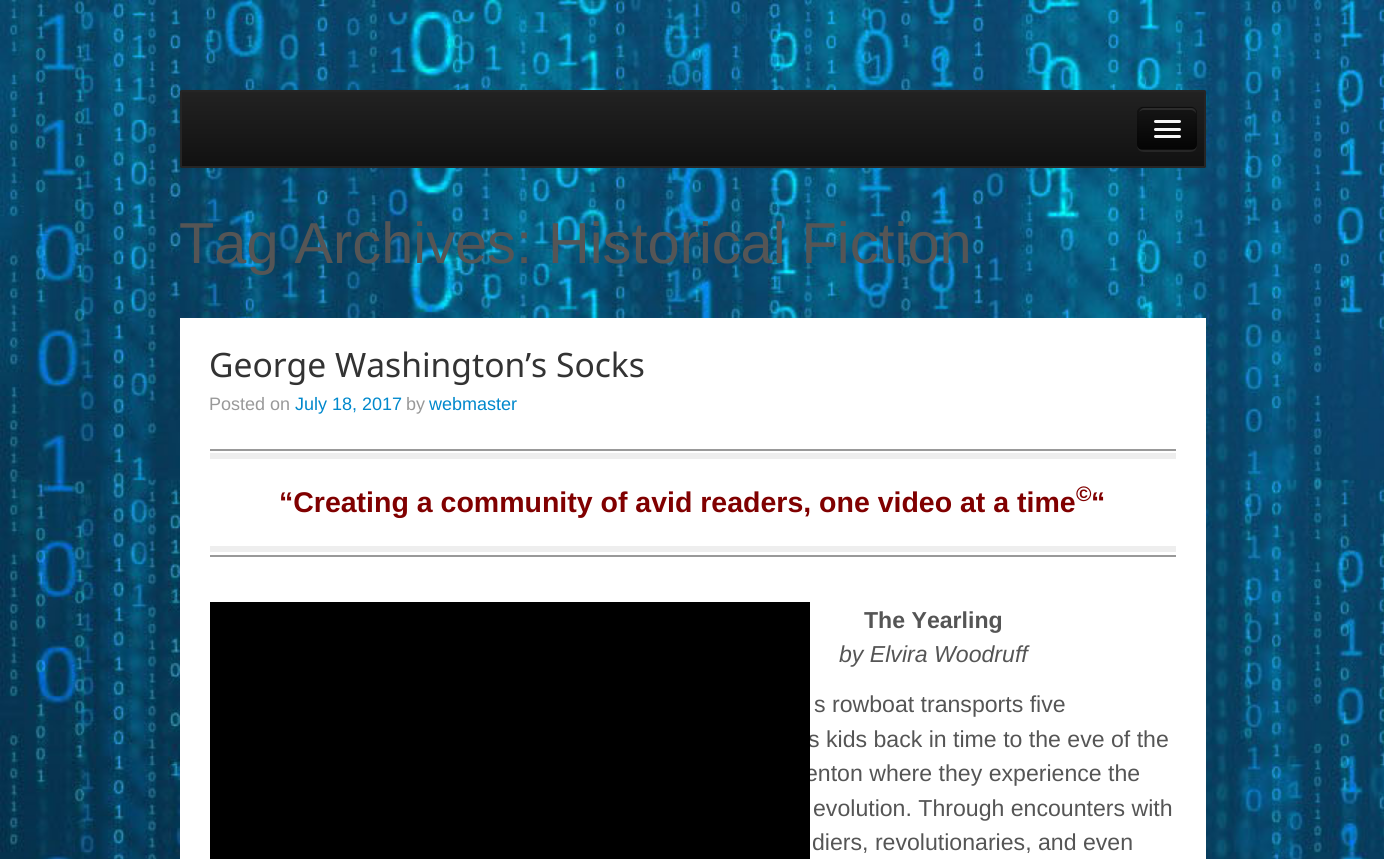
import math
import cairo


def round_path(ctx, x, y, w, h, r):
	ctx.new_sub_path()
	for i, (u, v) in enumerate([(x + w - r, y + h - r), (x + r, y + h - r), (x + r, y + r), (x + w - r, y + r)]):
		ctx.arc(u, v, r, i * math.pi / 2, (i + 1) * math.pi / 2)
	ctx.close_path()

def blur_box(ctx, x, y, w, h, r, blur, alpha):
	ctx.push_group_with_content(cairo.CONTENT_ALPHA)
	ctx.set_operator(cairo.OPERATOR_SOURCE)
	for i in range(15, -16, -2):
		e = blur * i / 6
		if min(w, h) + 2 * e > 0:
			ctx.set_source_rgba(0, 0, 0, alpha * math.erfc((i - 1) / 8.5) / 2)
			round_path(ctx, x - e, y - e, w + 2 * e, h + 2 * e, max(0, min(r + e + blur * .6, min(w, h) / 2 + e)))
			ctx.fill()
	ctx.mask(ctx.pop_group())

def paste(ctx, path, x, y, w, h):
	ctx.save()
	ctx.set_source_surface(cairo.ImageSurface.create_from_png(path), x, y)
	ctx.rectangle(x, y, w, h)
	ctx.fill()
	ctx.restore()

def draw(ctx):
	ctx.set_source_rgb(1, 1, 1)
	ctx.paint()
	paste(ctx, 'media/1.png', 0, 0, 1384, 859)
	ctx.set_source_rgb(0, 0, 0)
	blur_box(ctx, 180, 92, 1026, 78, 1.5, 3, 0.07)
	gradient = cairo.LinearGradient(693, 91, 693, 167)
	gradient.add_color_stop_rgba(0, 0.133, 0.133, 0.133, 1)
	gradient.add_color_stop_rgba(1, 0.067, 0.067, 0.067, 1)
	ctx.set_source(gradient)
	ctx.rectangle(180, 92, 1026, 75)
	ctx.fill()
	round_path(ctx, 181, 91, 1024, 76, 0.5)
	ctx.set_source_rgb(0.145, 0.145, 0.145)
	ctx.stroke()
	ctx.set_source_rgb(0.149, 0.149, 0.149)
	ctx.new_path()
	ctx.move_to(1137, 144)
	ctx.curve_to(1137, 153, 1143, 152, 1151, 152)
	ctx.line_to(1183, 152)
	ctx.curve_to(1191, 152, 1197, 153, 1197, 144)
	ctx.curve_to(1197, 147, 1194, 150, 1191, 150)
	ctx.line_to(1143, 150)
	ctx.curve_to(1140, 150, 1137, 147, 1137, 144)
	ctx.close_path()
	ctx.fill()
	ctx.set_source_rgb(0.055, 0.055, 0.055)
	round_path(ctx, 1137, 107, 60, 43, 6)
	ctx.fill()
	ctx.save()
	round_path(ctx, 1137, 107, 60, 43, 6)
	ctx.clip()
	gradient = cairo.LinearGradient(1167, 108, 1167, 149)
	gradient.add_color_stop_rgba(0, 0.082, 0.082, 0.082, 1)
	gradient.add_color_stop_rgba(1, 0.016, 0.016, 0.016, 1)
	ctx.set_source(gradient)
	ctx.rectangle(1137, 108, 60, 41)
	ctx.fill()
	ctx.restore()
	ctx.set_source_rgb(0.173, 0.173, 0.173)
	ctx.new_path()
	ctx.move_to(1143, 110)
	ctx.line_to(1191, 110)
	ctx.curve_to(1193, 110, 1196, 112, 1196, 114)
	ctx.line_to(1196, 113)
	ctx.curve_to(1196, 110, 1194, 108, 1191, 108)
	ctx.line_to(1144, 108)
	ctx.curve_to(1142, 108, 1140, 110, 1139, 112)
	ctx.curve_to(1140, 111, 1142, 110, 1143, 110)
	ctx.close_path()
	ctx.fill()
	ctx.new_path()
	ctx.move_to(1139.5, 147.5)
	ctx.curve_to(1138.5, 146.5, 1138, 145.5, 1138, 144)
	ctx.line_to(1138, 112.5)
	ctx.curve_to(1138, 111, 1138.5, 110, 1139.5, 109)
	ctx.curve_to(1140.5, 108, 1141.5, 107, 1143, 107)
	ctx.line_to(1191, 107)
	ctx.curve_to(1192.5, 107, 1193.5, 108, 1194.5, 109)
	ctx.curve_to(1195.5, 110, 1196, 111, 1196, 112.5)
	ctx.line_to(1196, 144)
	ctx.curve_to(1196, 145.5, 1195.5, 146.5, 1194.5, 147.5)
	ctx.set_source_rgba(0, 0, 0, 0.1)
	ctx.set_line_width(1.5)
	ctx.stroke()
	ctx.set_source_rgb(0.043, 0.043, 0.043)
	ctx.new_path()
	ctx.move_to(1154, 123)
	ctx.curve_to(1152.5, 126, 1159.5, 125, 1159.5, 125)
	ctx.line_to(1180, 125)
	ctx.curve_to(1181, 124.5, 1181.5, 123, 1180.5, 122)
	ctx.line_to(1179, 123)
	ctx.curve_to(1177, 123.5, 1155, 123.5, 1154, 123)
	ctx.close_path()
	ctx.fill()
	ctx.set_source_rgb(0.961, 0.961, 0.961)
	round_path(ctx, 1154, 120, 27, 3, 1.5)
	ctx.fill()
	ctx.set_source_rgb(0.031, 0.031, 0.031)
	ctx.new_path()
	ctx.move_to(1154, 130)
	ctx.curve_to(1153.5, 133, 1159, 132, 1159.5, 132)
	ctx.line_to(1179.5, 132)
	ctx.curve_to(1181, 132, 1181.5, 130, 1180.5, 129.5)
	ctx.line_to(1179.5, 130.5)
	ctx.curve_to(1178, 131, 1154.5, 130.5, 1154, 130)
	ctx.close_path()
	ctx.fill()
	ctx.set_source_rgb(0.961, 0.961, 0.961)
	round_path(ctx, 1154, 128, 27, 3, 1.5)
	ctx.fill()
	round_path(ctx, 1154, 135, 27, 3, 1.5)
	ctx.fill()
	ctx.select_font_face('Liberation Sans')
	ctx.set_font_size(57.75)
	ctx.set_source_rgb(0.333, 0.333, 0.333)
	ctx.move_to(179, 263)
	ctx.show_text('Tag Archives: Historical Fiction')
	ctx.set_source_rgb(1, 1, 1)
	ctx.rectangle(180, 318, 1026, 541)
	ctx.fill()
	ctx.select_font_face('Noto Sans')
	ctx.set_font_size(33.6)
	ctx.set_source_rgb(0.2, 0.2, 0.2)
	ctx.move_to(209, 377)
	ctx.show_text('George Washington’s Socks')
	ctx.select_font_face('Liberation Sans')
	ctx.set_font_size(18)
	ctx.set_source_rgb(0.6, 0.6, 0.6)
	ctx.move_to(209, 410)
	ctx.show_text('Posted on')
	ctx.set_source_rgb(0, 0.533, 0.8)
	ctx.move_to(295, 410)
	ctx.show_text('July 18, 2017')
	ctx.set_source_rgb(0.6, 0.6, 0.6)
	ctx.move_to(406, 410)
	ctx.show_text('by')
	ctx.set_source_rgb(0, 0.533, 0.8)
	ctx.move_to(429, 410)
	ctx.show_text('webmaster')
	ctx.set_source_rgb(0.6, 0.6, 0.6)
	ctx.rectangle(210, 449, 966, 2)
	ctx.rectangle(210, 555, 966, 2)
	ctx.fill()
	ctx.set_source_rgb(0.933, 0.933, 0.933)
	ctx.rectangle(210, 453, 966, 6)
	ctx.rectangle(210, 546, 966, 6)
	ctx.fill()
	ctx.select_font_face('Liberation Sans', cairo.FONT_SLANT_NORMAL, cairo.FONT_WEIGHT_BOLD)
	ctx.set_font_size(28.5)
	ctx.set_source_rgb(0.502, 0, 0)
	ctx.move_to(279, 512)
	ctx.show_text('“Creating a community of avid readers, one video at a time')
	ctx.set_font_size(21)
	ctx.move_to(1076, 501)
	ctx.show_text('©')
	ctx.set_font_size(28.5)
	ctx.move_to(1091, 512)
	ctx.show_text('“')
	ctx.select_font_face('Liberation Sans')
	ctx.set_font_size(23.1)
	ctx.set_source_rgb(0.333, 0.333, 0.333)
	ctx.move_to(808, 747)
	ctx.show_text('s kids back in time to the eve of the')
	ctx.move_to(805, 781)
	ctx.show_text('enton where they experience the')
	ctx.set_source_rgb(0, 0, 0)
	ctx.rectangle(210, 602, 600, 257)
	ctx.fill()
	ctx.select_font_face('Liberation Sans', cairo.FONT_SLANT_NORMAL, cairo.FONT_WEIGHT_BOLD)
	ctx.set_source_rgb(0.333, 0.333, 0.333)
	ctx.move_to(864, 628)
	ctx.show_text('The Yearling')
	ctx.select_font_face('Liberation Sans', cairo.FONT_SLANT_ITALIC)
	ctx.move_to(839, 662)
	ctx.show_text('by Elvira Woodruff')
	ctx.select_font_face('Liberation Sans')
	for x, y, s in [
		(814, 712, 's rowboat transports five'),
		(813, 816, 'evolution. Through encounters with'),
		(812, 850, 'diers, revolutionaries, and even'),
	]:
		ctx.move_to(x, y)
		ctx.show_text(s)


surface = cairo.ImageSurface(cairo.FORMAT_RGB24, 1384, 859)
ctx = cairo.Context(surface)
options = cairo.FontOptions()
options.set_hint_metrics(cairo.HINT_METRICS_OFF)
options.set_hint_style(cairo.HINT_STYLE_NONE)
ctx.set_font_options(options)
ctx.set_miter_limit(4)
draw(ctx)
surface.write_to_png('image.png')
